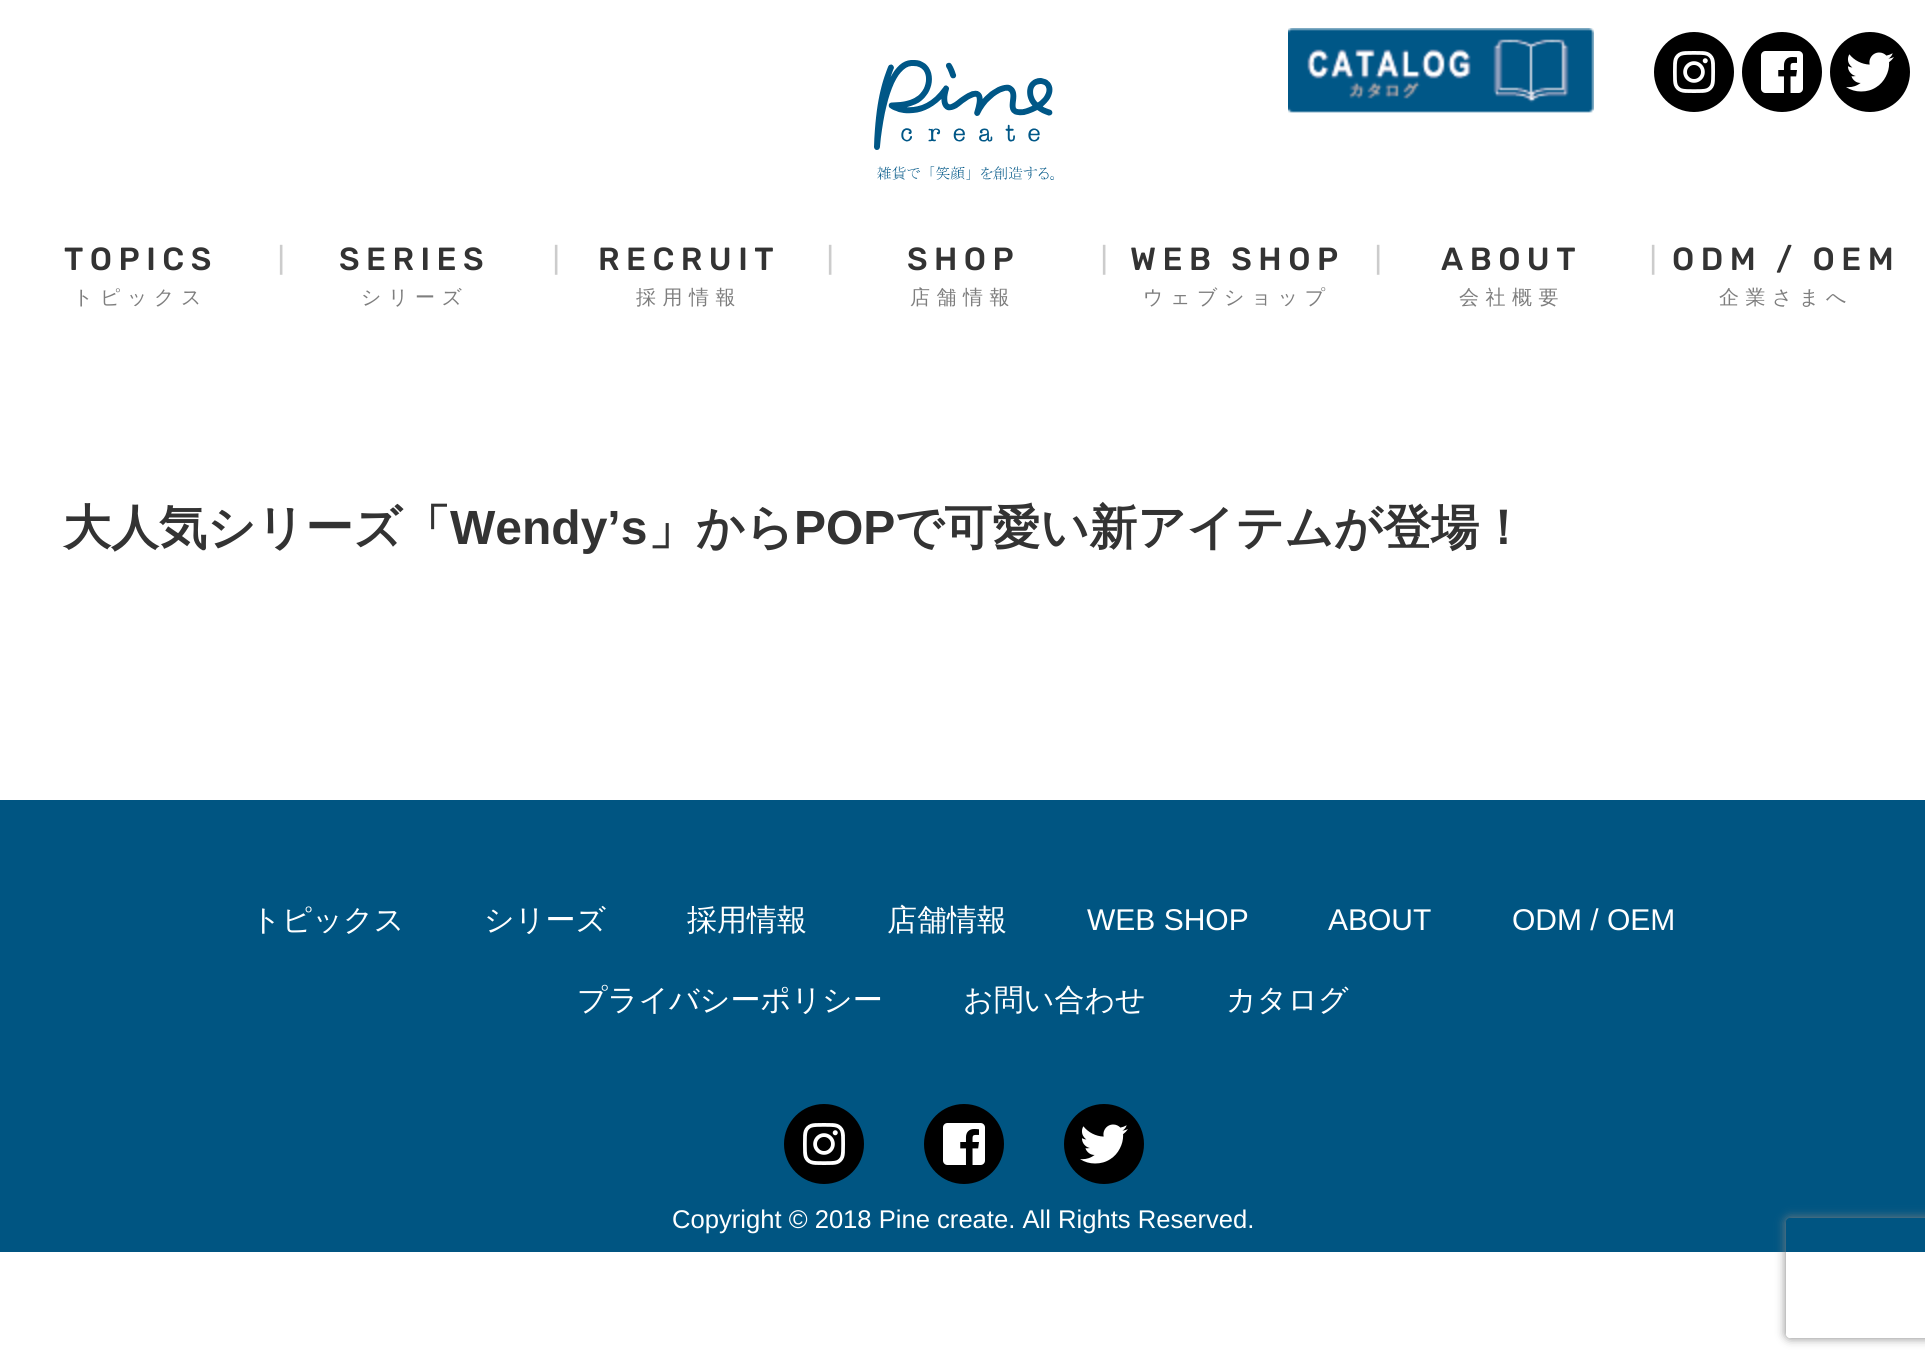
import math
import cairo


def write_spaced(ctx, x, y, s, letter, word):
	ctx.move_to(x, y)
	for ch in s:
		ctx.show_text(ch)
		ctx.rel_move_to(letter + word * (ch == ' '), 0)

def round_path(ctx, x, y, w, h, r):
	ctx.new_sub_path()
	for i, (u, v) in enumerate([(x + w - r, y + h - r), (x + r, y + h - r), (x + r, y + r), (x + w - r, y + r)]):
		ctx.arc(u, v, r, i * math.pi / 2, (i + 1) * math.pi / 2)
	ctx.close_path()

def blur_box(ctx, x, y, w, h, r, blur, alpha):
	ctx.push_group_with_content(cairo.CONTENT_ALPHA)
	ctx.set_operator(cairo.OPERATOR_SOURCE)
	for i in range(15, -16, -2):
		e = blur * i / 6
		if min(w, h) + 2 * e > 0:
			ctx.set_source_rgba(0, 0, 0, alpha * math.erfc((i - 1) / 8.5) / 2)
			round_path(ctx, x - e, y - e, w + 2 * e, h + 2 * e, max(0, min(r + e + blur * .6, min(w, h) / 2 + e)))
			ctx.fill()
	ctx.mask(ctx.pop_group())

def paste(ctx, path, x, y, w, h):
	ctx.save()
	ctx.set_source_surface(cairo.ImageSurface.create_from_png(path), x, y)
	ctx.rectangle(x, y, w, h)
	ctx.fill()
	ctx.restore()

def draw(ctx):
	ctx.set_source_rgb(1, 1, 1)
	ctx.paint()
	paste(ctx, 'media/1.png', 874, 60, 180, 120)
	paste(ctx, 'media/2.png', 1288, 28, 306, 85)
	ctx.set_source_rgb(0, 0, 0)
	ctx.arc(1694, 72, 40, 0, 2 * math.pi)
	ctx.fill()
	paste(ctx, 'media/3.png', 1673, 51, 42, 42)
	ctx.arc(1782, 72, 40, 0, 2 * math.pi)
	ctx.fill()
	paste(ctx, 'media/4.png', 1761, 51, 42, 42)
	ctx.arc(1870, 72, 40, 0, 2 * math.pi)
	ctx.fill()
	paste(ctx, 'media/5.png', 1846, 52, 48, 40)
	ctx.select_font_face('Rubik Medium')
	ctx.set_font_size(32)
	ctx.set_source_rgb(0.2, 0.2, 0.2)
	write_spaced(ctx, 64, 270, 'TOPICS', 6.5, 0)
	ctx.select_font_face('WenQuanYi Zen Hei Medium')
	ctx.set_font_size(20)
	ctx.set_source_rgb(0.494, 0.494, 0.494)
	write_spaced(ctx, 73, 304, 'トピックス', 6.5, 0)
	ctx.select_font_face('Liberation Sans')
	ctx.set_font_size(32)
	ctx.set_source_rgb(0.8, 0.8, 0.8)
	ctx.move_to(277, 268)
	ctx.show_text('|')
	ctx.select_font_face('Rubik Medium')
	ctx.set_source_rgb(0.2, 0.2, 0.2)
	write_spaced(ctx, 339, 270, 'SERIES', 6.5, 0)
	ctx.select_font_face('WenQuanYi Zen Hei Medium')
	ctx.set_font_size(20)
	ctx.set_source_rgb(0.494, 0.494, 0.494)
	write_spaced(ctx, 361, 304, 'シリーズ', 6.5, 0)
	ctx.select_font_face('Liberation Sans')
	ctx.set_font_size(32)
	ctx.set_source_rgb(0.8, 0.8, 0.8)
	ctx.move_to(552, 268)
	ctx.show_text('|')
	ctx.select_font_face('Rubik Medium')
	ctx.set_source_rgb(0.2, 0.2, 0.2)
	write_spaced(ctx, 598, 270, 'RECRUIT', 6.5, 0)
	ctx.select_font_face('WenQuanYi Zen Hei Medium')
	ctx.set_font_size(20)
	ctx.set_source_rgb(0.494, 0.494, 0.494)
	write_spaced(ctx, 636, 304, '採用情報', 6.5, 0)
	ctx.select_font_face('Liberation Sans')
	ctx.set_font_size(32)
	ctx.set_source_rgb(0.8, 0.8, 0.8)
	ctx.move_to(826, 268)
	ctx.show_text('|')
	ctx.select_font_face('Rubik Medium')
	ctx.set_source_rgb(0.2, 0.2, 0.2)
	write_spaced(ctx, 907, 270, 'SHOP', 6.5, 0)
	ctx.select_font_face('WenQuanYi Zen Hei Medium')
	ctx.set_font_size(20)
	ctx.set_source_rgb(0.494, 0.494, 0.494)
	write_spaced(ctx, 910, 304, '店舗情報', 6.5, 0)
	ctx.select_font_face('Liberation Sans')
	ctx.set_font_size(32)
	ctx.set_source_rgb(0.8, 0.8, 0.8)
	ctx.move_to(1100, 268)
	ctx.show_text('|')
	ctx.select_font_face('Rubik Medium')
	ctx.set_source_rgb(0.2, 0.2, 0.2)
	write_spaced(ctx, 1130, 270, 'WEB SHOP', 6.5, 0)
	ctx.select_font_face('WenQuanYi Zen Hei Medium')
	ctx.set_font_size(20)
	ctx.set_source_rgb(0.494, 0.494, 0.494)
	write_spaced(ctx, 1143, 304, 'ウェブショップ', 6.5, 0)
	ctx.select_font_face('Liberation Sans')
	ctx.set_font_size(32)
	ctx.set_source_rgb(0.8, 0.8, 0.8)
	ctx.move_to(1374, 268)
	ctx.show_text('|')
	ctx.select_font_face('Rubik Medium')
	ctx.set_source_rgb(0.2, 0.2, 0.2)
	write_spaced(ctx, 1441, 270, 'ABOUT', 6.5, 0)
	ctx.select_font_face('WenQuanYi Zen Hei Medium')
	ctx.set_font_size(20)
	ctx.set_source_rgb(0.494, 0.494, 0.494)
	write_spaced(ctx, 1459, 304, '会社概要', 6.5, 0)
	ctx.select_font_face('Liberation Sans')
	ctx.set_font_size(32)
	ctx.set_source_rgb(0.8, 0.8, 0.8)
	ctx.move_to(1649, 268)
	ctx.show_text('|')
	ctx.select_font_face('Rubik Medium')
	ctx.set_source_rgb(0.2, 0.2, 0.2)
	write_spaced(ctx, 1672, 270, 'ODM / OEM', 6.5, 0)
	ctx.select_font_face('WenQuanYi Zen Hei Medium')
	ctx.set_font_size(20)
	ctx.set_source_rgb(0.494, 0.494, 0.494)
	write_spaced(ctx, 1719, 304, '企業さまへ', 6.5, 0)
	ctx.select_font_face('WenQuanYi Zen Hei', cairo.FONT_SLANT_NORMAL, cairo.FONT_WEIGHT_BOLD)
	ctx.set_font_size(48)
	ctx.set_source_rgb(0.2, 0.2, 0.2)
	ctx.move_to(63, 544)
	ctx.show_text('大人気シリーズ「')
	ctx.select_font_face('Liberation Sans', cairo.FONT_SLANT_NORMAL, cairo.FONT_WEIGHT_BOLD)
	ctx.move_to(450, 544)
	ctx.show_text('Wendy’s')
	ctx.select_font_face('WenQuanYi Zen Hei', cairo.FONT_SLANT_NORMAL, cairo.FONT_WEIGHT_BOLD)
	ctx.move_to(648, 544)
	ctx.show_text('」から')
	ctx.select_font_face('Liberation Sans', cairo.FONT_SLANT_NORMAL, cairo.FONT_WEIGHT_BOLD)
	ctx.move_to(794, 544)
	ctx.show_text('POP')
	ctx.select_font_face('WenQuanYi Zen Hei', cairo.FONT_SLANT_NORMAL, cairo.FONT_WEIGHT_BOLD)
	ctx.move_to(895, 544)
	ctx.show_text('で可愛い新アイテムが登場！')
	ctx.set_source_rgb(0, 0.333, 0.51)
	ctx.rectangle(0, 800, 1925, 452)
	ctx.fill()
	ctx.select_font_face('WenQuanYi Zen Hei Medium')
	ctx.set_font_size(30)
	ctx.set_source_rgb(1, 1, 1)
	for x, y, s in [
		(251, 930, 'トピックス'),
		(484, 930, 'シリーズ'),
		(687, 930, '採用情報'),
		(887, 930, '店舗情報'),
	]:
		ctx.move_to(x, y)
		ctx.show_text(s)
	ctx.select_font_face('Liberation Sans')
	for x, y, s in [
		(1087, 930, 'WEB SHOP'),
		(1328, 930, 'ABOUT'),
		(1512, 930, 'ODM / OEM'),
	]:
		ctx.move_to(x, y)
		ctx.show_text(s)
	ctx.select_font_face('WenQuanYi Zen Hei Medium')
	for x, y, s in [
		(577, 1010, 'プライバシーポリシー'),
		(963, 1010, 'お問い合わせ'),
		(1226, 1010, 'カタログ'),
	]:
		ctx.move_to(x, y)
		ctx.show_text(s)
	ctx.set_source_rgb(0, 0, 0)
	ctx.new_path()
	ctx.arc(824, 1144, 40, 0, 2 * math.pi)
	ctx.fill()
	paste(ctx, 'media/3.png', 803, 1123, 42, 42)
	ctx.arc(964, 1144, 40, 0, 2 * math.pi)
	ctx.fill()
	paste(ctx, 'media/4.png', 943, 1123, 42, 42)
	ctx.arc(1104, 1144, 40, 0, 2 * math.pi)
	ctx.fill()
	paste(ctx, 'media/5.png', 1080, 1124, 48, 40)
	ctx.select_font_face('Liberation Sans')
	ctx.set_font_size(25.6)
	ctx.set_source_rgb(1, 1, 1)
	ctx.move_to(672, 1228)
	ctx.show_text('Copyright © 2018 Pine create. All Rights Reserved.')
	ctx.save()
	ctx.set_fill_rule(cairo.FILL_RULE_EVEN_ODD)
	ctx.new_path()
	ctx.move_to(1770, 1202)
	ctx.line_to(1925, 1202)
	ctx.line_to(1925, 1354)
	ctx.line_to(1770, 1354)
	ctx.close_path()
	ctx.move_to(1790, 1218)
	ctx.line_to(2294, 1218)
	ctx.curve_to(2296, 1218, 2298, 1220, 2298, 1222)
	ctx.line_to(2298, 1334)
	ctx.curve_to(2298, 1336, 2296, 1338, 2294, 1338)
	ctx.line_to(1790, 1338)
	ctx.curve_to(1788, 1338, 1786, 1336, 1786, 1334)
	ctx.line_to(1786, 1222)
	ctx.curve_to(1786, 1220, 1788, 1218, 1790, 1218)
	ctx.close_path()
	ctx.clip()
	ctx.set_source_rgb(0.502, 0.502, 0.502)
	blur_box(ctx, 1786, 1218, 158, 120, 4, 5, 1)
	ctx.restore()


surface = cairo.ImageSurface(cairo.FORMAT_RGB24, 1925, 1366)
ctx = cairo.Context(surface)
options = cairo.FontOptions()
options.set_hint_metrics(cairo.HINT_METRICS_OFF)
options.set_hint_style(cairo.HINT_STYLE_NONE)
ctx.set_font_options(options)
ctx.set_miter_limit(4)
draw(ctx)
surface.write_to_png('image.png')
